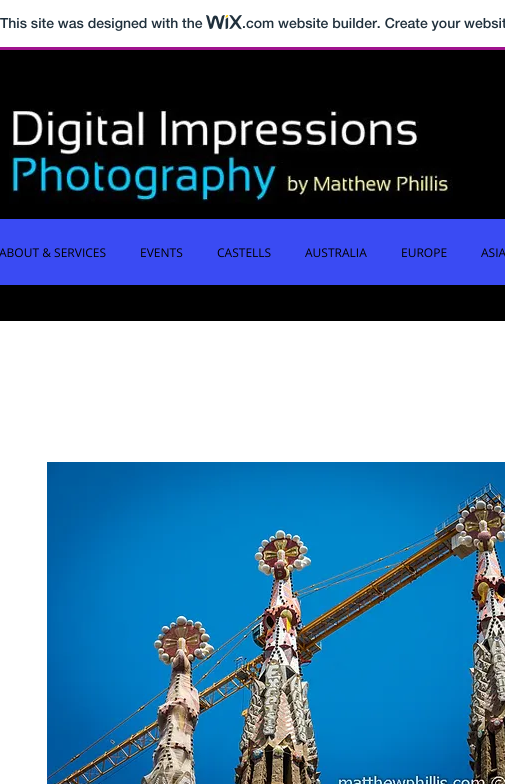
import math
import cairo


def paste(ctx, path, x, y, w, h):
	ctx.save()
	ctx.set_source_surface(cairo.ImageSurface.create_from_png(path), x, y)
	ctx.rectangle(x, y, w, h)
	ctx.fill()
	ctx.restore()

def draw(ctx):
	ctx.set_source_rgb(1, 1, 1)
	ctx.paint()
	ctx.set_source_rgb(0.627, 0.075, 0.557)
	ctx.rectangle(0, 47, 505, 3)
	ctx.fill()
	ctx.select_font_face('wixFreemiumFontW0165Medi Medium')
	ctx.set_font_size(14)
	ctx.set_source_rgb(0.125, 0.188, 0.235)
	ctx.move_to(0, 28)
	ctx.show_text('This site was designed with the')
	paste(ctx, 'media/1.png', 206, 15, 36, 15)
	ctx.move_to(242, 28)
	ctx.show_text('.com website builder. Create your websit')
	ctx.set_source_rgb(0, 0, 0)
	ctx.rectangle(0, 50, 505, 271)
	ctx.fill()
	paste(ctx, 'media/2.png', 9, 108, 444, 96)
	ctx.set_source_rgb(0.227, 0.294, 0.953)
	ctx.rectangle(0, 219, 505, 66)
	ctx.fill()
	ctx.select_font_face('Open Sans')
	ctx.set_font_size(12)
	ctx.set_source_rgb(0, 0, 0)
	for x, y, s in [
		(-1, 257, 'ABOUT & SERVICES'),
		(140, 257, 'EVENTS'),
		(217, 257, 'CASTELLS'),
		(305, 257, 'AUSTRALIA'),
		(401, 257, 'EUROPE'),
		(481, 257, 'ASIA'),
	]:
		ctx.move_to(x, y)
		ctx.show_text(s)
	paste(ctx, 'media/3.png', 47, 462, 458, 322)


surface = cairo.ImageSurface(cairo.FORMAT_RGB24, 505, 784)
ctx = cairo.Context(surface)
options = cairo.FontOptions()
options.set_hint_metrics(cairo.HINT_METRICS_OFF)
options.set_hint_style(cairo.HINT_STYLE_NONE)
ctx.set_font_options(options)
ctx.set_miter_limit(4)
draw(ctx)
surface.write_to_png('image.png')
